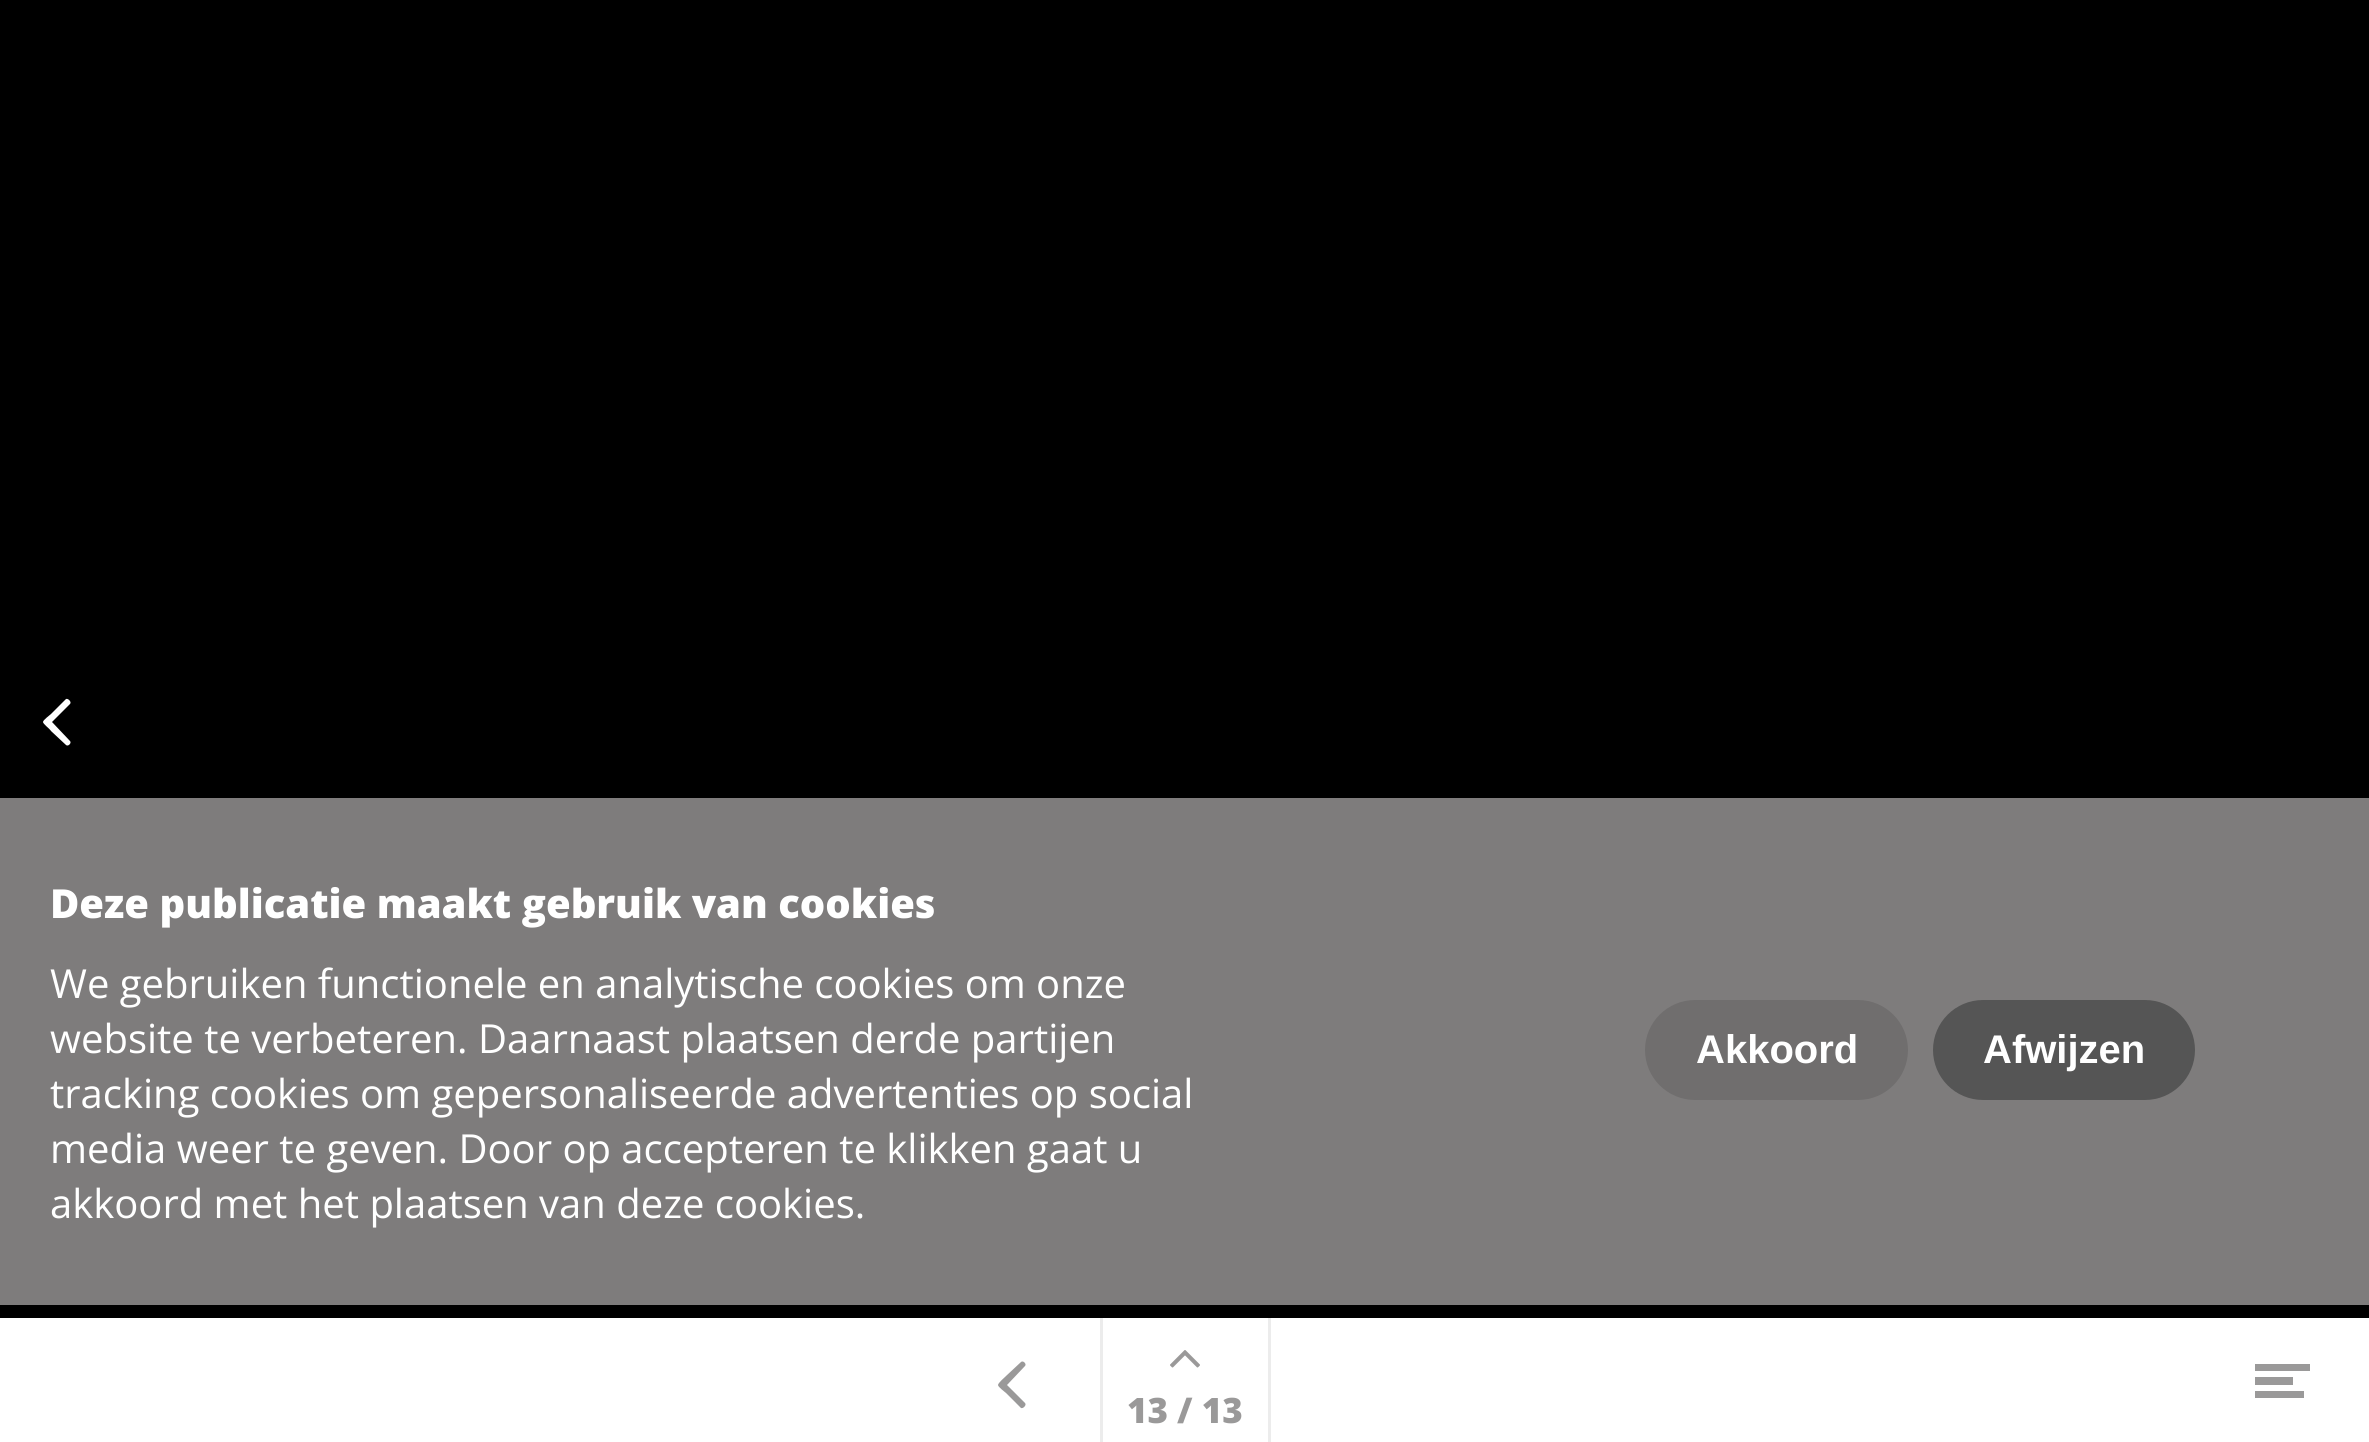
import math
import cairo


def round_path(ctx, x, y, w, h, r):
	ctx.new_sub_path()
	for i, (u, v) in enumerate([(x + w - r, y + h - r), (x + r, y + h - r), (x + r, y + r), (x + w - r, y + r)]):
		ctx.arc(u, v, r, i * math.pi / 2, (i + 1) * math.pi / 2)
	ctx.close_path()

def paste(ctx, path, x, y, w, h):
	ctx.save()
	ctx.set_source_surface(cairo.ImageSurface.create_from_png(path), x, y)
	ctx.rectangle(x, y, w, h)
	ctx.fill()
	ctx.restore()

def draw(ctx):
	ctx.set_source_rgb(1, 1, 1)
	ctx.paint()
	ctx.set_source_rgb(0, 0, 0)
	ctx.rectangle(0, 0, 2369, 1318)
	ctx.fill()
	ctx.set_source_rgb(0.494, 0.486, 0.486)
	ctx.rectangle(0, 798, 2369, 507)
	ctx.fill()
	ctx.select_font_face('Open Sans ExtraBold')
	ctx.set_font_size(40)
	ctx.set_source_rgb(1, 1, 1)
	ctx.move_to(50, 918)
	ctx.show_text('Deze publicatie maakt gebruik van cookies')
	ctx.select_font_face('Open Sans')
	for x, y, s in [
		(50, 998, 'We gebruiken functionele en analytische cookies om onze'),
		(50, 1053, 'website te verbeteren. Daarnaast plaatsen derde partijen'),
		(50, 1108, 'tracking cookies om gepersonaliseerde advertenties op social'),
		(50, 1163, 'media weer te geven. Door op accepteren te klikken gaat u'),
		(50, 1218, 'akkoord met het plaatsen van deze cookies.'),
	]:
		ctx.move_to(x, y)
		ctx.show_text(s)
	ctx.set_source_rgb(0.439, 0.431, 0.431)
	round_path(ctx, 1645, 1000, 263, 100, 50)
	ctx.fill()
	ctx.select_font_face('Liberation Sans', cairo.FONT_SLANT_NORMAL, cairo.FONT_WEIGHT_BOLD)
	ctx.set_source_rgb(1, 1, 1)
	ctx.move_to(1696, 1063)
	ctx.show_text('Akkoord')
	ctx.set_source_rgb(0.333, 0.333, 0.333)
	round_path(ctx, 1933, 1000, 262, 100, 50)
	ctx.fill()
	ctx.set_source_rgb(1, 1, 1)
	ctx.move_to(1983, 1063)
	ctx.show_text('Afwijzen')
	ctx.new_path()
	ctx.move_to(43, 722)
	ctx.curve_to(43, 720, 50, 715, 51, 714)
	ctx.line_to(66, 699)
	ctx.curve_to(68, 698, 72, 702, 70, 704)
	ctx.line_to(52, 722)
	ctx.line_to(70, 741)
	ctx.curve_to(72, 743, 68, 747, 66, 745)
	ctx.line_to(51, 731)
	ctx.curve_to(50, 729, 43, 724, 43, 722)
	ctx.close_path()
	ctx.fill()
	ctx.set_source_rgb(0.604, 0.6, 0.6)
	ctx.new_path()
	ctx.move_to(2255, 1364)
	ctx.line_to(2310, 1364)
	ctx.line_to(2310, 1371)
	ctx.line_to(2255, 1371)
	ctx.close_path()
	ctx.move_to(2255, 1377)
	ctx.line_to(2293, 1377)
	ctx.line_to(2293, 1385)
	ctx.line_to(2255, 1385)
	ctx.close_path()
	ctx.move_to(2255, 1391)
	ctx.line_to(2304, 1391)
	ctx.line_to(2304, 1398)
	ctx.line_to(2255, 1398)
	ctx.close_path()
	ctx.fill()
	ctx.new_path()
	ctx.move_to(998, 1385)
	ctx.curve_to(998, 1383, 1005, 1377, 1006, 1376)
	ctx.line_to(1021, 1362)
	ctx.curve_to(1023, 1360, 1027, 1364, 1025, 1366)
	ctx.line_to(1007, 1385)
	ctx.line_to(1025, 1403)
	ctx.curve_to(1027, 1405, 1023, 1409, 1021, 1408)
	ctx.line_to(1006, 1393)
	ctx.curve_to(1005, 1392, 998, 1387, 998, 1385)
	ctx.close_path()
	ctx.fill()
	ctx.set_source_rgb(0.922, 0.922, 0.922)
	ctx.rectangle(1100, 1318, 3, 124)
	ctx.fill()
	paste(ctx, 'media/1.png', 1170, 1350, 30, 18)
	ctx.select_font_face('Open Sans ExtraBold')
	ctx.set_font_size(35)
	ctx.set_source_rgb(0.604, 0.6, 0.6)
	ctx.move_to(1127, 1423)
	ctx.show_text('13 / 13')
	ctx.set_source_rgb(0.922, 0.922, 0.922)
	ctx.rectangle(1268, 1318, 3, 124)
	ctx.fill()


surface = cairo.ImageSurface(cairo.FORMAT_RGB24, 2369, 1442)
ctx = cairo.Context(surface)
options = cairo.FontOptions()
options.set_hint_metrics(cairo.HINT_METRICS_OFF)
options.set_hint_style(cairo.HINT_STYLE_NONE)
ctx.set_font_options(options)
ctx.set_miter_limit(4)
draw(ctx)
surface.write_to_png('image.png')
